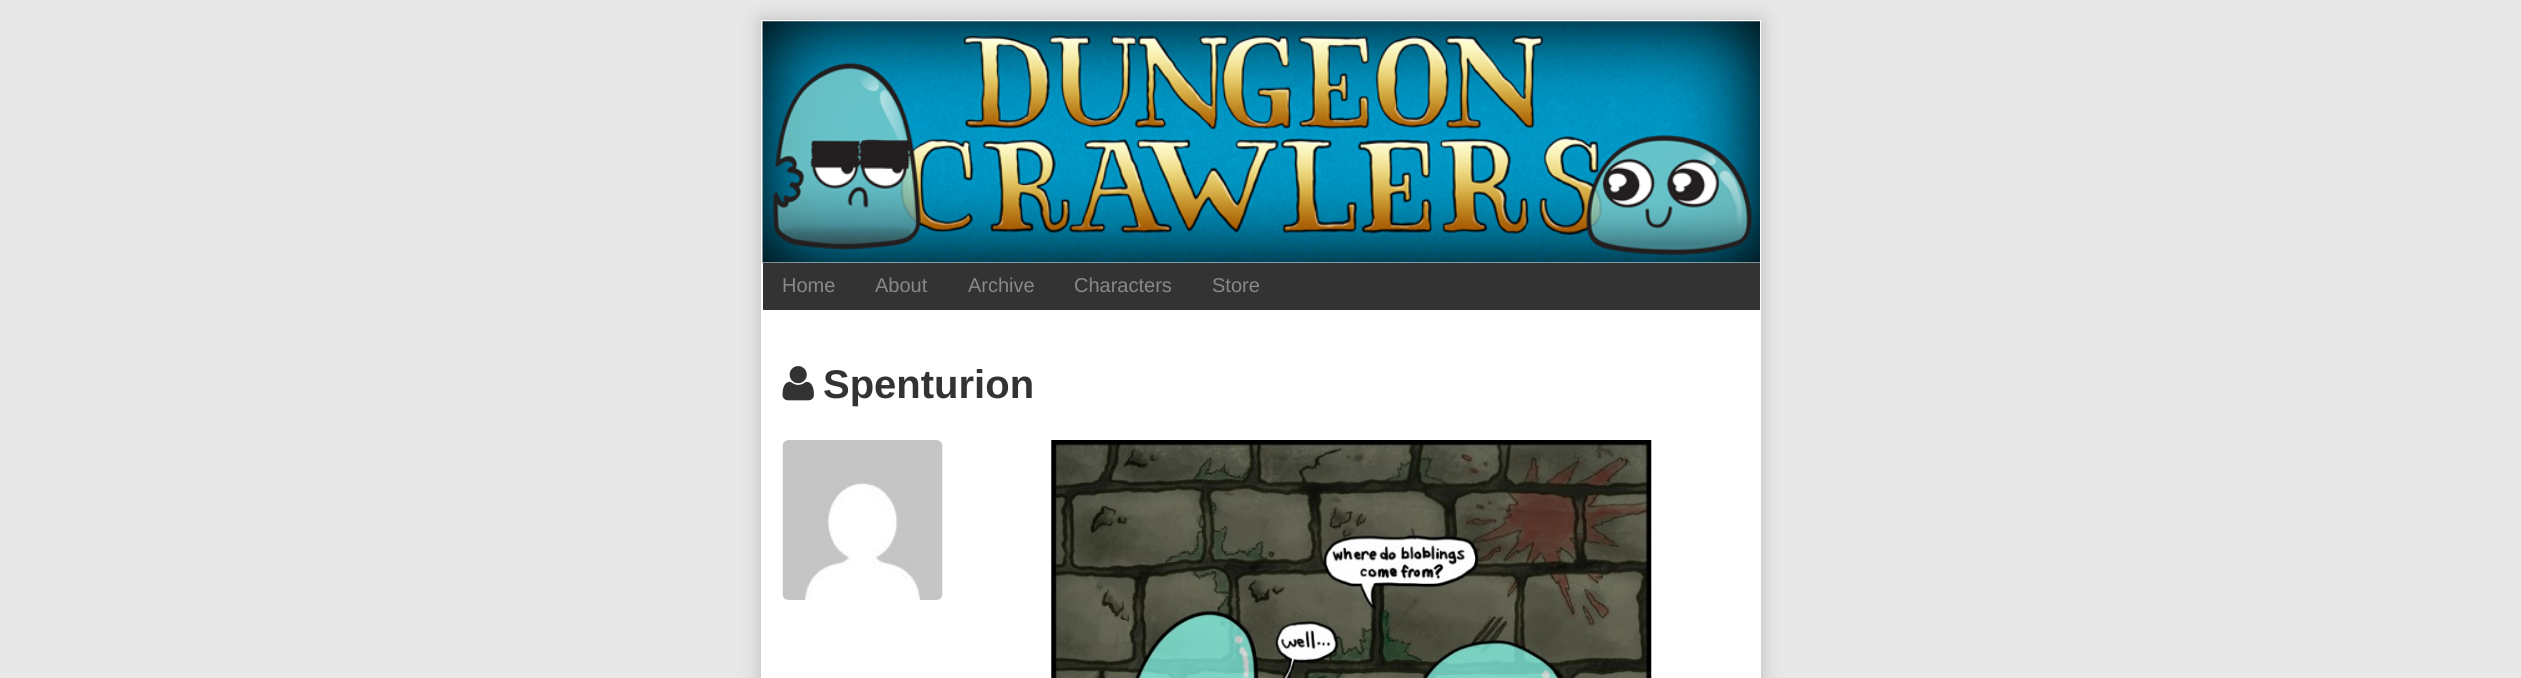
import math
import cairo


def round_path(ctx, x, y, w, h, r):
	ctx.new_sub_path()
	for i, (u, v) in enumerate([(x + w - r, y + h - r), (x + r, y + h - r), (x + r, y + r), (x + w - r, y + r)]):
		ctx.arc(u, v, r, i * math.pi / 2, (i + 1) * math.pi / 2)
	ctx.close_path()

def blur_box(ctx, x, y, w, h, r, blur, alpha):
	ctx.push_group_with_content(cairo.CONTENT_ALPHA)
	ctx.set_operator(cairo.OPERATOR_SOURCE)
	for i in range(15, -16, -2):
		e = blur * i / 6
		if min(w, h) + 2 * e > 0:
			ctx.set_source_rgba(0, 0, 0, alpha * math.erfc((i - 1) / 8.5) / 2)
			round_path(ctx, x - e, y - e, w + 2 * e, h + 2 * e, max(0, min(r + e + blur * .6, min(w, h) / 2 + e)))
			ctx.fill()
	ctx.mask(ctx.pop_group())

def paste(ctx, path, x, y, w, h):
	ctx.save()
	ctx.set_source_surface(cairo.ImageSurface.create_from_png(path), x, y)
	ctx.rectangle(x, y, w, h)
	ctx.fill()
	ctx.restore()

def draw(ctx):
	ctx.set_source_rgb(0.91, 0.91, 0.91)
	ctx.paint()
	ctx.set_source_rgb(0, 0, 0)
	blur_box(ctx, 761, 20, 1000, 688, 0, 10, 0.2)
	ctx.set_source_rgb(1, 1, 1)
	ctx.rectangle(761, 20, 1000, 658)
	ctx.fill()
	paste(ctx, 'media/1.png', 762, 21, 998, 242)
	ctx.set_source_rgb(0.2, 0.2, 0.2)
	ctx.rectangle(763, 263, 997, 47)
	ctx.fill()
	ctx.select_font_face('Liberation Sans')
	ctx.set_font_size(20)
	ctx.set_source_rgb(0.533, 0.533, 0.533)
	for x, y, s in [
		(782, 292, 'Home'),
		(875, 292, 'About'),
		(968, 292, 'Archive'),
		(1074, 292, 'Characters'),
		(1212, 292, 'Store'),
	]:
		ctx.move_to(x, y)
		ctx.show_text(s)
	paste(ctx, 'media/2.png', 782, 366, 32, 35)
	ctx.select_font_face('Liberation Sans', cairo.FONT_SLANT_NORMAL, cairo.FONT_WEIGHT_BOLD)
	ctx.set_font_size(40)
	ctx.set_source_rgb(0.2, 0.2, 0.2)
	ctx.move_to(823, 398)
	ctx.show_text('Spenturion')
	paste(ctx, 'media/3.png', 782, 440, 161, 160)
	paste(ctx, 'media/4.png', 1051, 440, 601, 238)


surface = cairo.ImageSurface(cairo.FORMAT_RGB24, 2521, 678)
ctx = cairo.Context(surface)
options = cairo.FontOptions()
options.set_hint_metrics(cairo.HINT_METRICS_OFF)
options.set_hint_style(cairo.HINT_STYLE_NONE)
ctx.set_font_options(options)
ctx.set_miter_limit(4)
draw(ctx)
surface.write_to_png('image.png')
